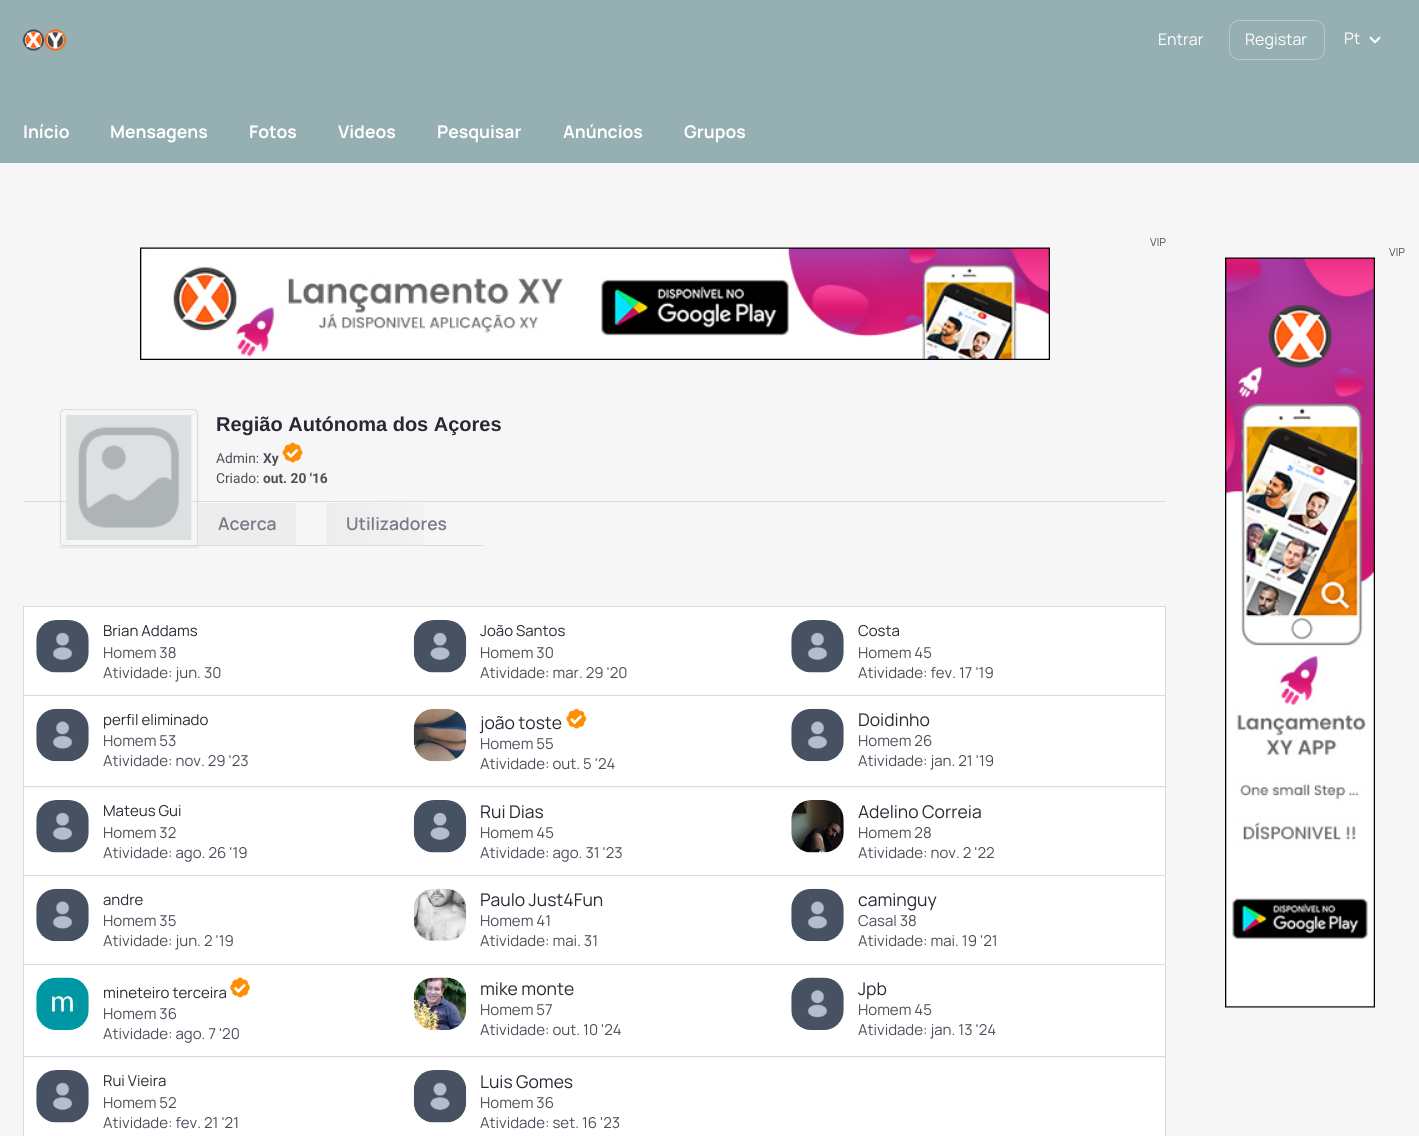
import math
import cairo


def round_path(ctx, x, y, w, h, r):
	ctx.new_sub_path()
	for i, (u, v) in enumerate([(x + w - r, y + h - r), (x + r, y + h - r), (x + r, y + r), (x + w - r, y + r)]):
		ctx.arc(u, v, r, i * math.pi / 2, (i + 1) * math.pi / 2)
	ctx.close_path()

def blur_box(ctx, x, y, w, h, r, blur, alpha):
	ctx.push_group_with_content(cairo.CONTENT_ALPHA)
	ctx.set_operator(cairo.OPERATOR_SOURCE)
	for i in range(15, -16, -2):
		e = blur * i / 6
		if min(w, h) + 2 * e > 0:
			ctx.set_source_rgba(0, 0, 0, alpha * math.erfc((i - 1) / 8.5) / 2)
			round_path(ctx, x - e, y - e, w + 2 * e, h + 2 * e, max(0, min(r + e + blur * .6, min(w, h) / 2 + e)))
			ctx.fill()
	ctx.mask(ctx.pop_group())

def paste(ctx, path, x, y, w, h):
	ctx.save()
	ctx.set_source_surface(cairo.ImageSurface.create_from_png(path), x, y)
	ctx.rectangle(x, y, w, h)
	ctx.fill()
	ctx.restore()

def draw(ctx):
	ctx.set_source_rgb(0.961, 0.961, 0.961)
	ctx.paint()
	ctx.set_source_rgb(0.584, 0.686, 0.698)
	ctx.rectangle(0, 0, 1419, 163)
	ctx.fill()
	paste(ctx, 'media/1.png', 22, 29, 45, 22)
	ctx.select_font_face('Manrope')
	ctx.set_font_size(16)
	ctx.set_source_rgb(1, 1, 1)
	ctx.move_to(1158, 45)
	ctx.show_text('Entrar')
	round_path(ctx, 1229.5, 20.5, 95, 39, 9.5)
	ctx.set_source_rgb(0.71, 0.78, 0.788)
	ctx.set_line_width(1)
	ctx.stroke()
	ctx.set_source_rgb(1, 1, 1)
	ctx.move_to(1245, 45)
	ctx.show_text('Registar')
	ctx.move_to(1344, 44)
	ctx.show_text('Pt')
	paste(ctx, 'media/2.png', 1369, 36, 12, 8)
	ctx.select_font_face('Manrope', cairo.FONT_SLANT_NORMAL, cairo.FONT_WEIGHT_BOLD)
	ctx.set_font_size(17.5)
	for x, y, s in [
		(23, 138, 'Início'),
		(110, 138, 'Mensagens'),
		(249, 138, 'Fotos'),
		(338, 138, 'Videos'),
		(437, 138, 'Pesquisar'),
		(563, 138, 'Anúncios'),
		(684, 138, 'Grupos'),
	]:
		ctx.move_to(x, y)
		ctx.show_text(s)
	ctx.select_font_face('Manrope')
	ctx.set_font_size(11)
	ctx.set_source_rgb(0.306, 0.302, 0.353)
	ctx.move_to(1150, 246)
	ctx.show_text('VIP')
	paste(ctx, 'media/3.png', 140, 247, 910, 113)
	ctx.select_font_face('Liberation Sans', cairo.FONT_SLANT_NORMAL, cairo.FONT_WEIGHT_BOLD)
	ctx.set_font_size(20)
	ctx.set_source_rgb(0.161, 0.157, 0.204)
	ctx.move_to(216, 431)
	ctx.show_text('Região Autónoma dos Açores')
	ctx.select_font_face('Roboto')
	ctx.set_font_size(13.75)
	ctx.set_source_rgb(0.306, 0.302, 0.353)
	ctx.move_to(216, 463)
	ctx.show_text('Admin:')
	ctx.select_font_face('Roboto', cairo.FONT_SLANT_NORMAL, cairo.FONT_WEIGHT_BOLD)
	ctx.move_to(263, 463)
	ctx.show_text('Xy')
	paste(ctx, 'media/4.png', 282, 442, 21, 21)
	ctx.select_font_face('Roboto')
	ctx.move_to(216, 483)
	ctx.show_text('Criado:')
	ctx.select_font_face('Roboto', cairo.FONT_SLANT_NORMAL, cairo.FONT_WEIGHT_BOLD)
	ctx.move_to(263, 483)
	ctx.show_text('out. 20 \'16')
	ctx.set_source_rgb(0.855, 0.855, 0.878)
	ctx.rectangle(23, 501, 1143, 1)
	ctx.fill()
	ctx.save()
	ctx.set_fill_rule(cairo.FILL_RULE_EVEN_ODD)
	ctx.new_path()
	ctx.move_to(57, 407)
	ctx.line_to(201, 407)
	ctx.line_to(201, 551)
	ctx.line_to(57, 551)
	ctx.close_path()
	ctx.move_to(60, 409)
	ctx.line_to(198, 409)
	ctx.line_to(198, 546)
	ctx.line_to(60, 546)
	ctx.close_path()
	ctx.clip()
	ctx.set_source_rgb(0, 0, 0)
	blur_box(ctx, 60, 410, 138, 138, 0, 0.5, 0.07)
	ctx.restore()
	ctx.new_path()
	ctx.move_to(65, 409.5)
	ctx.line_to(193, 409.5)
	ctx.curve_to(195.5, 409.5, 197.5, 411.5, 197.5, 414)
	ctx.line_to(197.5, 545.5)
	ctx.line_to(65, 545.5)
	ctx.curve_to(62.5, 545.5, 60.5, 543.5, 60.5, 541)
	ctx.line_to(60.5, 414)
	ctx.curve_to(60.5, 411.5, 62.5, 409.5, 65, 409.5)
	ctx.close_path()
	ctx.stroke()
	paste(ctx, 'media/5.png', 66, 415, 126, 125)
	ctx.rectangle(198, 545, 285, 1)
	ctx.fill()
	ctx.set_source_rgb(0.929, 0.929, 0.929)
	ctx.rectangle(198, 503, 98, 42)
	ctx.fill()
	ctx.select_font_face('Manrope SemiBold')
	ctx.set_font_size(17.5)
	ctx.set_source_rgb(0.478, 0.475, 0.533)
	ctx.move_to(218, 530)
	ctx.show_text('Acerca')
	gradient = cairo.LinearGradient(326, 524, 468, 524)
	gradient.add_color_stop_rgba(0, 0.929, 0.929, 0.929, 1)
	gradient.add_color_stop_rgba(1, 0.961, 0.961, 0.961, 1)
	ctx.set_source(gradient)
	ctx.rectangle(326, 503, 98, 42)
	ctx.fill()
	ctx.set_source_rgb(0.478, 0.475, 0.533)
	ctx.move_to(346, 530)
	ctx.show_text('Utilizadores')
	ctx.set_source_rgb(1, 1, 1)
	ctx.rectangle(23.5, 606.5, 1142, 89)
	ctx.fill_preserve()
	ctx.set_source_rgb(0.855, 0.855, 0.878)
	ctx.stroke()
	paste(ctx, 'media/6.png', 36, 620, 53, 53)
	ctx.select_font_face('Manrope')
	ctx.set_font_size(15)
	ctx.set_source_rgb(0.161, 0.157, 0.204)
	ctx.move_to(103, 636)
	ctx.show_text('Brian Addams')
	ctx.set_source_rgb(0.306, 0.302, 0.353)
	ctx.move_to(103, 658)
	ctx.show_text('Homem 38')
	ctx.move_to(103, 678)
	ctx.show_text('Atividade: jun. 30')
	paste(ctx, 'media/7.png', 413, 620, 54, 53)
	ctx.set_source_rgb(0.161, 0.157, 0.204)
	ctx.move_to(480, 636)
	ctx.show_text('João Santos')
	ctx.set_source_rgb(0.306, 0.302, 0.353)
	ctx.move_to(480, 658)
	ctx.show_text('Homem 30')
	ctx.move_to(480, 678)
	ctx.show_text('Atividade: mar. 29 \'20')
	paste(ctx, 'media/8.png', 791, 620, 53, 53)
	ctx.set_source_rgb(0.161, 0.157, 0.204)
	ctx.move_to(858, 636)
	ctx.show_text('Costa')
	ctx.set_source_rgb(0.306, 0.302, 0.353)
	ctx.move_to(858, 658)
	ctx.show_text('Homem 45')
	ctx.move_to(858, 678)
	ctx.show_text('Atividade: fev. 17 \'19')
	ctx.set_source_rgb(1, 1, 1)
	ctx.rectangle(24, 696, 1141, 90)
	ctx.fill()
	ctx.set_source_rgb(0.855, 0.855, 0.878)
	ctx.rectangle(1165, 696, 1, 440)
	ctx.rectangle(23, 786, 1143, 1)
	ctx.rectangle(23, 696, 1, 92)
	ctx.fill()
	paste(ctx, 'media/9.png', 36, 708, 53, 54)
	ctx.set_source_rgb(0.161, 0.157, 0.204)
	ctx.move_to(103, 725)
	ctx.show_text('perfil eliminado')
	ctx.set_source_rgb(0.306, 0.302, 0.353)
	ctx.move_to(103, 746)
	ctx.show_text('Homem 53')
	ctx.move_to(103, 766)
	ctx.show_text('Atividade: nov. 29 \'23')
	paste(ctx, 'media/10.png', 413, 708, 54, 54)
	ctx.set_font_size(17.5)
	ctx.set_source_rgb(0.161, 0.157, 0.204)
	ctx.move_to(480, 729)
	ctx.show_text('joão toste')
	paste(ctx, 'media/11.png', 566, 708, 21, 21)
	ctx.set_font_size(15)
	ctx.set_source_rgb(0.306, 0.302, 0.353)
	ctx.move_to(480, 749)
	ctx.show_text('Homem 55')
	ctx.move_to(480, 769)
	ctx.show_text('Atividade: out. 5 \'24')
	paste(ctx, 'media/12.png', 791, 708, 53, 54)
	ctx.set_font_size(17.5)
	ctx.set_source_rgb(0.161, 0.157, 0.204)
	ctx.move_to(858, 726)
	ctx.show_text('Doidinho')
	ctx.set_font_size(15)
	ctx.set_source_rgb(0.306, 0.302, 0.353)
	ctx.move_to(858, 746)
	ctx.show_text('Homem 26')
	ctx.move_to(858, 766)
	ctx.show_text('Atividade: jan. 21 \'19')
	ctx.set_source_rgb(1, 1, 1)
	ctx.rectangle(24, 788, 1141, 87)
	ctx.fill()
	ctx.set_source_rgb(0.855, 0.855, 0.878)
	ctx.rectangle(23, 875, 1143, 1)
	ctx.rectangle(23, 788, 1, 88)
	ctx.fill()
	paste(ctx, 'media/6.png', 36, 800, 53, 53)
	ctx.set_source_rgb(0.161, 0.157, 0.204)
	ctx.move_to(103, 816)
	ctx.show_text('Mateus Gui')
	ctx.set_source_rgb(0.306, 0.302, 0.353)
	ctx.move_to(103, 838)
	ctx.show_text('Homem 32')
	ctx.move_to(103, 858)
	ctx.show_text('Atividade: ago. 26 \'19')
	paste(ctx, 'media/7.png', 413, 800, 54, 53)
	ctx.set_font_size(17.5)
	ctx.set_source_rgb(0.161, 0.157, 0.204)
	ctx.move_to(480, 818)
	ctx.show_text('Rui Dias')
	ctx.set_font_size(15)
	ctx.set_source_rgb(0.306, 0.302, 0.353)
	ctx.move_to(480, 838)
	ctx.show_text('Homem 45')
	ctx.move_to(480, 858)
	ctx.show_text('Atividade: ago. 31 \'23')
	paste(ctx, 'media/13.png', 791, 800, 53, 53)
	ctx.set_font_size(17.5)
	ctx.set_source_rgb(0.161, 0.157, 0.204)
	ctx.move_to(858, 818)
	ctx.show_text('Adelino Correia')
	ctx.set_font_size(15)
	ctx.set_source_rgb(0.306, 0.302, 0.353)
	ctx.move_to(858, 838)
	ctx.show_text('Homem 28')
	ctx.move_to(858, 858)
	ctx.show_text('Atividade: nov. 2 \'22')
	ctx.set_source_rgb(1, 1, 1)
	ctx.rectangle(24, 876, 1141, 88)
	ctx.fill()
	ctx.set_source_rgb(0.855, 0.855, 0.878)
	ctx.rectangle(23, 964, 1143, 1)
	ctx.rectangle(23, 876, 1, 89)
	ctx.fill()
	paste(ctx, 'media/9.png', 36, 888, 53, 54)
	ctx.set_source_rgb(0.161, 0.157, 0.204)
	ctx.move_to(103, 905)
	ctx.show_text('andre')
	ctx.set_source_rgb(0.306, 0.302, 0.353)
	ctx.move_to(103, 926)
	ctx.show_text('Homem 35')
	ctx.move_to(103, 946)
	ctx.show_text('Atividade: jun. 2 \'19')
	paste(ctx, 'media/14.png', 413, 888, 54, 53)
	ctx.set_font_size(17.5)
	ctx.set_source_rgb(0.161, 0.157, 0.204)
	ctx.move_to(480, 906)
	ctx.show_text('Paulo Just4Fun')
	ctx.set_font_size(15)
	ctx.set_source_rgb(0.306, 0.302, 0.353)
	ctx.move_to(480, 926)
	ctx.show_text('Homem 41')
	ctx.move_to(480, 946)
	ctx.show_text('Atividade: mai. 31')
	paste(ctx, 'media/12.png', 791, 888, 53, 54)
	ctx.set_font_size(17.5)
	ctx.set_source_rgb(0.161, 0.157, 0.204)
	ctx.move_to(858, 906)
	ctx.show_text('caminguy')
	ctx.set_font_size(15)
	ctx.set_source_rgb(0.306, 0.302, 0.353)
	ctx.move_to(858, 926)
	ctx.show_text('Casal 38')
	ctx.move_to(858, 946)
	ctx.show_text('Atividade: mai. 19 \'21')
	ctx.set_source_rgb(1, 1, 1)
	ctx.rectangle(24, 965, 1141, 91)
	ctx.fill()
	ctx.set_source_rgb(0.855, 0.855, 0.878)
	ctx.rectangle(23, 1056, 1143, 1)
	ctx.rectangle(23, 965, 1, 171)
	ctx.fill()
	paste(ctx, 'media/15.png', 36, 977, 53, 53)
	ctx.set_source_rgb(0.161, 0.157, 0.204)
	ctx.move_to(103, 998)
	ctx.show_text('mineteiro terceira')
	paste(ctx, 'media/16.png', 230, 977, 20, 21)
	ctx.set_source_rgb(0.306, 0.302, 0.353)
	ctx.move_to(103, 1019)
	ctx.show_text('Homem 36')
	ctx.move_to(103, 1039)
	ctx.show_text('Atividade: ago. 7 \'20')
	paste(ctx, 'media/17.png', 413, 977, 54, 53)
	ctx.set_font_size(17.5)
	ctx.set_source_rgb(0.161, 0.157, 0.204)
	ctx.move_to(480, 995)
	ctx.show_text('mike monte')
	ctx.set_font_size(15)
	ctx.set_source_rgb(0.306, 0.302, 0.353)
	ctx.move_to(480, 1015)
	ctx.show_text('Homem 57')
	ctx.move_to(480, 1035)
	ctx.show_text('Atividade: out. 10 \'24')
	paste(ctx, 'media/18.png', 791, 977, 53, 53)
	ctx.set_font_size(17.5)
	ctx.set_source_rgb(0.161, 0.157, 0.204)
	ctx.move_to(858, 995)
	ctx.show_text('Jpb')
	ctx.set_font_size(15)
	ctx.set_source_rgb(0.306, 0.302, 0.353)
	ctx.move_to(858, 1015)
	ctx.show_text('Homem 45')
	ctx.move_to(858, 1035)
	ctx.show_text('Atividade: jan. 13 \'24')
	ctx.set_source_rgb(1, 1, 1)
	ctx.rectangle(24, 1058, 1141, 78)
	ctx.fill()
	paste(ctx, 'media/6.png', 36, 1070, 53, 53)
	ctx.set_source_rgb(0.161, 0.157, 0.204)
	ctx.move_to(103, 1086)
	ctx.show_text('Rui Vieira')
	ctx.set_source_rgb(0.306, 0.302, 0.353)
	ctx.move_to(103, 1108)
	ctx.show_text('Homem 52')
	ctx.move_to(103, 1128)
	ctx.show_text('Atividade: fev. 21 \'21')
	paste(ctx, 'media/7.png', 413, 1070, 54, 53)
	ctx.set_font_size(17.5)
	ctx.set_source_rgb(0.161, 0.157, 0.204)
	ctx.move_to(480, 1088)
	ctx.show_text('Luis Gomes')
	ctx.set_font_size(15)
	ctx.set_source_rgb(0.306, 0.302, 0.353)
	ctx.move_to(480, 1108)
	ctx.show_text('Homem 36')
	ctx.move_to(480, 1128)
	ctx.show_text('Atividade: set. 16 \'23')
	ctx.set_font_size(11)
	ctx.move_to(1389, 256)
	ctx.show_text('VIP')
	paste(ctx, 'media/19.png', 1225, 257, 150, 751)


surface = cairo.ImageSurface(cairo.FORMAT_RGB24, 1419, 1136)
ctx = cairo.Context(surface)
options = cairo.FontOptions()
options.set_hint_metrics(cairo.HINT_METRICS_OFF)
options.set_hint_style(cairo.HINT_STYLE_NONE)
ctx.set_font_options(options)
ctx.set_miter_limit(4)
draw(ctx)
surface.write_to_png('image.png')
